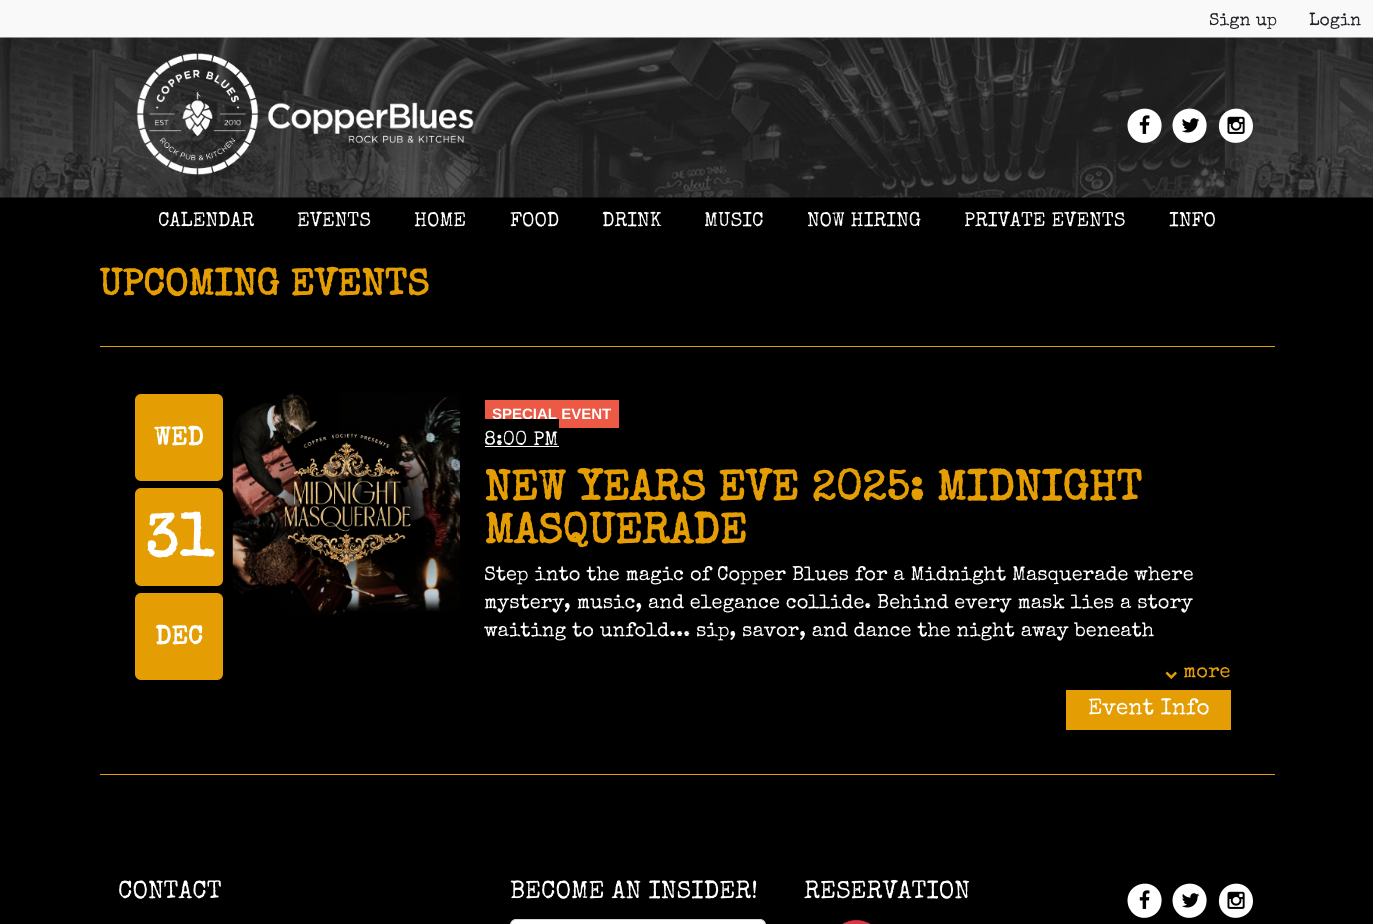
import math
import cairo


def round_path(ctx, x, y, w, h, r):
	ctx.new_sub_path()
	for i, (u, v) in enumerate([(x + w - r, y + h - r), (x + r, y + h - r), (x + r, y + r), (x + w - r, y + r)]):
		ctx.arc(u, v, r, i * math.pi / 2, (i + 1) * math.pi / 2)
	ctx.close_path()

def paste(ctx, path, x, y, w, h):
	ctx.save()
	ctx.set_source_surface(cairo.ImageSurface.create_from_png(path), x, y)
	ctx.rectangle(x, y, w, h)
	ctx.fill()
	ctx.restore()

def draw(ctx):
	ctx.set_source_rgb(0, 0, 0)
	ctx.paint()
	ctx.set_source_rgb(0.976, 0.976, 0.976)
	ctx.rectangle(0, 0, 1373, 38)
	ctx.fill()
	ctx.select_font_face('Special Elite')
	ctx.set_font_size(17.5)
	ctx.set_source_rgb(0.125, 0.133, 0.153)
	ctx.move_to(1209, 25)
	ctx.show_text('Sign up')
	ctx.move_to(1309, 25)
	ctx.show_text('Login')
	paste(ctx, 'media/1.png', 0, 37, 1373, 161)
	paste(ctx, 'media/2.png', 136, 53, 338, 122)
	ctx.set_source_rgb(1, 1, 1)
	ctx.new_path()
	ctx.move_to(1159.5, 117)
	ctx.curve_to(1161, 120, 1162, 123.5, 1161.5, 127)
	ctx.curve_to(1160.5, 143.5, 1138, 149, 1130, 134.5)
	ctx.curve_to(1128, 131.5, 1127.5, 128, 1127.5, 124.5)
	ctx.curve_to(1128.5, 108, 1151, 102.5, 1159.5, 117)
	ctx.close_path()
	ctx.fill()
	paste(ctx, 'media/3.png', 1139, 115, 11, 19)
	ctx.new_path()
	ctx.move_to(1204.5, 117)
	ctx.curve_to(1206, 120, 1207, 123.5, 1206.5, 127)
	ctx.curve_to(1205.5, 143.5, 1183, 149, 1175, 134.5)
	ctx.curve_to(1173, 131.5, 1172.5, 128, 1172.5, 124.5)
	ctx.curve_to(1173.5, 108, 1196, 102.5, 1204.5, 117)
	ctx.close_path()
	ctx.fill()
	paste(ctx, 'media/4.png', 1181, 118, 19, 15)
	ctx.new_path()
	ctx.move_to(1250.5, 117)
	ctx.curve_to(1252.5, 120, 1253, 123.5, 1253, 127)
	ctx.curve_to(1252, 143.5, 1229.5, 149, 1221, 134.5)
	ctx.curve_to(1219.5, 131.5, 1218.5, 128, 1219, 124.5)
	ctx.curve_to(1220, 108, 1242.5, 102.5, 1250.5, 117)
	ctx.close_path()
	ctx.fill()
	paste(ctx, 'media/5.png', 1227, 116, 18, 18)
	ctx.set_font_size(20)
	for x, y, s in [
		(158, 226, 'CALENDAR'),
		(297, 226, 'EVENTS'),
		(414, 226, 'HOME'),
		(510, 226, 'FOOD'),
		(602, 226, 'DRINK'),
		(704, 226, 'MUSIC'),
		(807, 226, 'NOW HIRING'),
		(964, 226, 'PRIVATE EVENTS'),
		(1169, 226, 'INFO'),
	]:
		ctx.move_to(x, y)
		ctx.show_text(s)
	ctx.set_source_rgb(0.898, 0.616, 0.016)
	ctx.rectangle(100, 346, 1175, 1)
	ctx.fill()
	ctx.select_font_face('Special Elite', cairo.FONT_SLANT_NORMAL, cairo.FONT_WEIGHT_BOLD)
	ctx.set_font_size(37.5)
	ctx.move_to(99, 295)
	ctx.show_text('UPCOMING EVENTS')
	ctx.rectangle(100, 774, 1175, 1)
	ctx.fill()
	round_path(ctx, 135, 394, 88, 87, 6)
	ctx.fill()
	ctx.set_font_size(26)
	ctx.set_source_rgb(1, 1, 1)
	ctx.move_to(154, 445)
	ctx.show_text('WED')
	ctx.set_source_rgb(0.898, 0.616, 0.016)
	round_path(ctx, 135, 488, 88, 98, 6)
	ctx.fill()
	ctx.set_font_size(60)
	ctx.set_source_rgb(1, 1, 1)
	ctx.move_to(145, 556)
	ctx.show_text('31')
	ctx.set_source_rgb(0.898, 0.616, 0.016)
	round_path(ctx, 135, 593, 88, 87, 6)
	ctx.fill()
	ctx.set_font_size(26)
	ctx.set_source_rgb(1, 1, 1)
	ctx.move_to(155, 644)
	ctx.show_text('DEC')
	paste(ctx, 'media/6.png', 232, 393, 228, 222)
	ctx.set_source_rgb(0.922, 0.353, 0.275)
	ctx.rectangle(485, 400, 134, 28)
	ctx.fill()
	ctx.select_font_face('Liberation Sans', cairo.FONT_SLANT_NORMAL, cairo.FONT_WEIGHT_BOLD)
	ctx.set_font_size(15)
	ctx.set_source_rgb(1, 1, 1)
	ctx.move_to(492, 419)
	ctx.show_text('SPECIAL EVENT')
	ctx.select_font_face('Special Elite')
	ctx.set_font_size(20)
	ctx.move_to(484, 445)
	ctx.show_text('8:00 PM')
	ctx.set_source_rgb(0, 0, 0)
	ctx.rectangle(485, 419, 74, 9)
	ctx.fill()
	ctx.set_source_rgb(1, 1, 1)
	ctx.rectangle(485, 446, 74, 1)
	ctx.fill()
	ctx.select_font_face('Special Elite', cairo.FONT_SLANT_NORMAL, cairo.FONT_WEIGHT_BOLD)
	ctx.set_font_size(42.75)
	ctx.set_source_rgb(0.898, 0.616, 0.016)
	ctx.move_to(484, 500)
	ctx.show_text('NEW YEARS EVE 2025: MIDNIGHT')
	ctx.move_to(484, 543)
	ctx.show_text('MASQUERADE')
	ctx.select_font_face('Special Elite')
	ctx.set_font_size(20)
	ctx.set_source_rgb(1, 1, 1)
	for x, y, s in [
		(484, 580, 'Step into the magic of Copper Blues for a Midnight Masquerade where'),
		(484, 608, 'mystery, music, and elegance collide. Behind every mask lies a story'),
		(484, 636, 'waiting to unfold... sip, savor, and dance the night away beneath'),
	]:
		ctx.move_to(x, y)
		ctx.show_text(s)
	paste(ctx, 'media/7.png', 1165, 671, 12, 8)
	ctx.set_source_rgb(0.898, 0.616, 0.016)
	ctx.move_to(1183, 677)
	ctx.show_text('more')
	ctx.rectangle(1066, 690, 165, 40)
	ctx.fill()
	ctx.set_font_size(22.5)
	ctx.set_source_rgb(1, 1, 1)
	ctx.move_to(1088, 714)
	ctx.show_text('Event Info')
	ctx.set_font_size(25)
	ctx.move_to(118, 898)
	ctx.show_text('CONTACT')
	ctx.move_to(510, 898)
	ctx.show_text('BECOME AN INSIDER!')
	round_path(ctx, 510.5, 919.5, 255, 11, 5.5)
	ctx.fill_preserve()
	ctx.set_source_rgb(0.851, 0.851, 0.851)
	ctx.set_line_width(1)
	ctx.stroke()
	ctx.set_source_rgb(1, 1, 1)
	ctx.move_to(804, 898)
	ctx.show_text('RESERVATION')
	paste(ctx, 'media/8.png', 842, 919, 29, 5)
	ctx.new_path()
	ctx.move_to(1159.5, 892)
	ctx.curve_to(1161, 895, 1162, 898.5, 1161.5, 902)
	ctx.curve_to(1160.5, 918.5, 1138, 924, 1130, 909.5)
	ctx.curve_to(1128, 906.5, 1127.5, 903, 1127.5, 899.5)
	ctx.curve_to(1128.5, 883, 1151, 877.5, 1159.5, 892)
	ctx.close_path()
	ctx.fill()
	paste(ctx, 'media/3.png', 1139, 890, 11, 19)
	ctx.new_path()
	ctx.move_to(1204.5, 892)
	ctx.curve_to(1206, 895, 1207, 898.5, 1206.5, 902)
	ctx.curve_to(1205.5, 918.5, 1183, 924, 1175, 909.5)
	ctx.curve_to(1173, 906.5, 1172.5, 903, 1172.5, 899.5)
	ctx.curve_to(1173.5, 883, 1196, 877.5, 1204.5, 892)
	ctx.close_path()
	ctx.fill()
	paste(ctx, 'media/4.png', 1181, 893, 19, 15)
	ctx.new_path()
	ctx.move_to(1250.5, 892)
	ctx.curve_to(1252.5, 895, 1253, 898.5, 1253, 902)
	ctx.curve_to(1252, 918.5, 1229.5, 924, 1221, 909.5)
	ctx.curve_to(1219.5, 906.5, 1218.5, 903, 1219, 899.5)
	ctx.curve_to(1220, 883, 1242.5, 877.5, 1250.5, 892)
	ctx.close_path()
	ctx.fill()
	paste(ctx, 'media/5.png', 1227, 891, 18, 18)


surface = cairo.ImageSurface(cairo.FORMAT_RGB24, 1373, 924)
ctx = cairo.Context(surface)
options = cairo.FontOptions()
options.set_hint_metrics(cairo.HINT_METRICS_OFF)
options.set_hint_style(cairo.HINT_STYLE_NONE)
ctx.set_font_options(options)
ctx.set_miter_limit(4)
draw(ctx)
surface.write_to_png('image.png')
